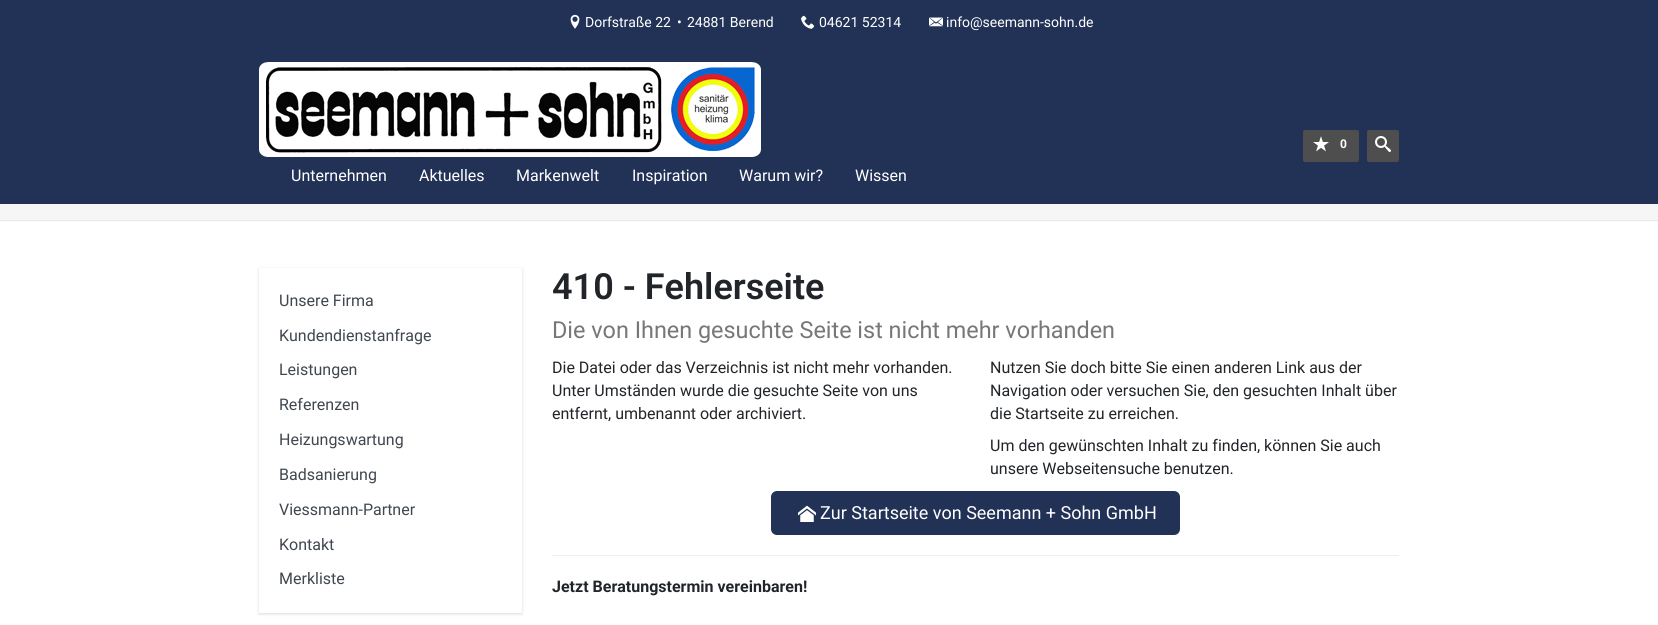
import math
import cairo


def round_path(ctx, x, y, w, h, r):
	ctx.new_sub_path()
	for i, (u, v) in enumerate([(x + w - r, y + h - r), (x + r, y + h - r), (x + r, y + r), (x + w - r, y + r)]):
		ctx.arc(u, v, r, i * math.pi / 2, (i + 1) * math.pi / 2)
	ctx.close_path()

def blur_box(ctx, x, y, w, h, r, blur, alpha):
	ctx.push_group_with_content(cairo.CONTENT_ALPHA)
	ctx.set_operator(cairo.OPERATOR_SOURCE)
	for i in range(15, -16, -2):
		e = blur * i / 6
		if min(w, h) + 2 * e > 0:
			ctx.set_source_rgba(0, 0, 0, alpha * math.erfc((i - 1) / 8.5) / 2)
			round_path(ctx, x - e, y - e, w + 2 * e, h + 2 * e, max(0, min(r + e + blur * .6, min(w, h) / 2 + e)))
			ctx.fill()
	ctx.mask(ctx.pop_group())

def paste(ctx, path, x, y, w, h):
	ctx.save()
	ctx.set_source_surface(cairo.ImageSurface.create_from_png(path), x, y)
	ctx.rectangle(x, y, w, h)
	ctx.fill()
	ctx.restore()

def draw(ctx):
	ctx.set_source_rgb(1, 1, 1)
	ctx.paint()
	ctx.set_source_rgb(0, 0, 0)
	blur_box(ctx, 0, 205, 1658, 16, 0, 0.5, 0.1)
	ctx.set_source_rgb(0.133, 0.196, 0.337)
	ctx.rectangle(0, 0, 1658, 204)
	ctx.fill()
	paste(ctx, 'media/1.png', 570, 14, 10, 15)
	ctx.select_font_face('Roboto')
	ctx.set_font_size(14)
	ctx.set_source_rgb(1, 1, 1)
	for x, y, s in [
		(585, 27, 'Dorfstraße 22'),
		(677, 27, '•'),
		(687, 27, '24881 Berend'),
	]:
		ctx.move_to(x, y)
		ctx.show_text(s)
	paste(ctx, 'media/2.png', 801, 15, 14, 14)
	ctx.move_to(819, 27)
	ctx.show_text('04621 52314')
	paste(ctx, 'media/3.png', 929, 17, 14, 10)
	ctx.move_to(946, 27)
	ctx.show_text('info@seemann-sohn.de')
	paste(ctx, 'media/4.png', 259, 62, 502, 95)
	ctx.set_source_rgb(0.306, 0.306, 0.306)
	round_path(ctx, 1303, 130, 56, 32, 2)
	ctx.fill()
	paste(ctx, 'media/5.png', 1313, 136, 16, 16)
	ctx.select_font_face('Roboto', cairo.FONT_SLANT_NORMAL, cairo.FONT_WEIGHT_BOLD)
	ctx.set_font_size(12)
	ctx.set_source_rgb(1, 1, 1)
	ctx.move_to(1340, 148)
	ctx.show_text('0')
	ctx.set_source_rgb(0.306, 0.306, 0.306)
	round_path(ctx, 1367, 130, 32, 32, 2)
	ctx.fill()
	paste(ctx, 'media/6.png', 1375, 136, 16, 16)
	ctx.select_font_face('Roboto')
	ctx.set_font_size(16)
	ctx.set_source_rgb(1, 1, 1)
	for x, y, s in [
		(291, 181, 'Unternehmen'),
		(419, 181, 'Aktuelles'),
		(516, 181, 'Markenwelt'),
		(632, 181, 'Inspiration'),
		(739, 181, 'Warum wir?'),
		(855, 181, 'Wissen'),
	]:
		ctx.move_to(x, y)
		ctx.show_text(s)
	ctx.set_source_rgb(0.961, 0.961, 0.961)
	ctx.rectangle(0, 204, 1658, 16)
	ctx.fill()
	ctx.save()
	ctx.set_fill_rule(cairo.FILL_RULE_EVEN_ODD)
	ctx.new_path()
	ctx.move_to(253, 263)
	ctx.line_to(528, 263)
	ctx.line_to(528, 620)
	ctx.line_to(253, 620)
	ctx.close_path()
	ctx.move_to(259, 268)
	ctx.line_to(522, 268)
	ctx.line_to(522, 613)
	ctx.line_to(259, 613)
	ctx.close_path()
	ctx.clip()
	ctx.set_source_rgb(0, 0, 0)
	blur_box(ctx, 259, 269, 263, 345, 0, 1.5, 0.15)
	ctx.restore()
	ctx.set_source_rgb(0.251, 0.278, 0.31)
	for x, y, s in [
		(279, 306, 'Unsere Firma'),
		(279, 341, 'Kundendienstanfrage'),
		(279, 375, 'Leistungen'),
		(279, 410, 'Referenzen'),
		(279, 445, 'Heizungswartung'),
		(279, 480, 'Badsanierung'),
		(279, 515, 'Viessmann-Partner'),
		(279, 550, 'Kontakt'),
		(279, 584, 'Merkliste'),
	]:
		ctx.move_to(x, y)
		ctx.show_text(s)
	ctx.select_font_face('Roboto SemiBold')
	ctx.set_font_size(36)
	ctx.set_source_rgb(0.129, 0.145, 0.161)
	ctx.move_to(552, 299)
	ctx.show_text('410 - Fehlerseite')
	ctx.select_font_face('Roboto')
	ctx.set_font_size(23.4)
	ctx.set_source_rgb(0.467, 0.467, 0.467)
	ctx.move_to(552, 338)
	ctx.show_text('Die von Ihnen gesuchte Seite ist nicht mehr vorhanden')
	ctx.set_font_size(16)
	ctx.set_source_rgb(0.129, 0.145, 0.161)
	for x, y, s in [
		(552, 373, 'Die Datei oder das Verzeichnis ist nicht mehr vorhanden.'),
		(552, 396, 'Unter Umständen wurde die gesuchte Seite von uns'),
		(552, 419, 'entfernt, umbenannt oder archiviert.'),
		(990, 373, 'Nutzen Sie doch bitte Sie einen anderen Link aus der'),
		(990, 396, 'Navigation oder versuchen Sie, den gesuchten Inhalt über'),
		(990, 419, 'die Startseite zu erreichen.'),
		(990, 451, 'Um den gewünschten Inhalt zu finden, können Sie auch'),
		(990, 474, 'unsere Webseitensuche benutzen.'),
	]:
		ctx.move_to(x, y)
		ctx.show_text(s)
	ctx.set_source_rgb(0.133, 0.196, 0.337)
	round_path(ctx, 771, 491, 409, 44, 6)
	ctx.fill()
	paste(ctx, 'media/7.png', 798, 505, 18, 17)
	ctx.set_font_size(18)
	ctx.set_source_rgb(1, 1, 1)
	ctx.move_to(820, 519)
	ctx.show_text('Zur Startseite von Seemann + Sohn GmbH')
	ctx.set_source_rgb(0.933, 0.933, 0.933)
	ctx.rectangle(552, 555, 847, 1)
	ctx.fill()
	ctx.select_font_face('Roboto', cairo.FONT_SLANT_NORMAL, cairo.FONT_WEIGHT_BOLD)
	ctx.set_font_size(16)
	ctx.set_source_rgb(0.129, 0.145, 0.161)
	ctx.move_to(552, 592)
	ctx.show_text('Jetzt Beratungstermin vereinbaren!')


surface = cairo.ImageSurface(cairo.FORMAT_RGB24, 1658, 625)
ctx = cairo.Context(surface)
options = cairo.FontOptions()
options.set_hint_metrics(cairo.HINT_METRICS_OFF)
options.set_hint_style(cairo.HINT_STYLE_NONE)
ctx.set_font_options(options)
ctx.set_miter_limit(4)
draw(ctx)
surface.write_to_png('image.png')
